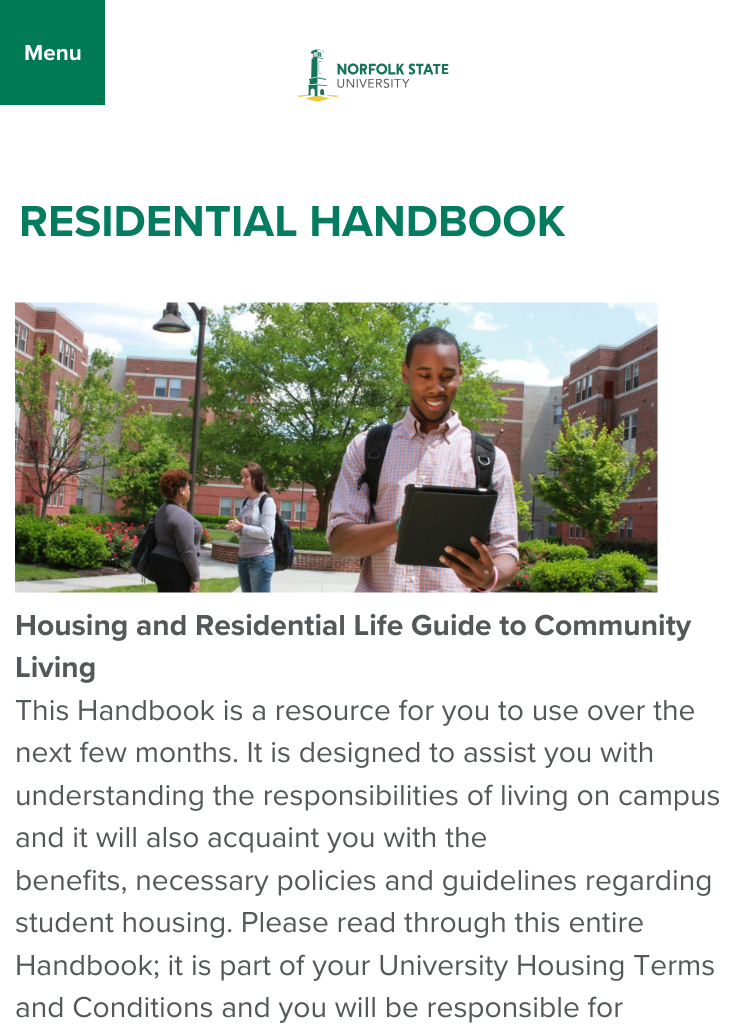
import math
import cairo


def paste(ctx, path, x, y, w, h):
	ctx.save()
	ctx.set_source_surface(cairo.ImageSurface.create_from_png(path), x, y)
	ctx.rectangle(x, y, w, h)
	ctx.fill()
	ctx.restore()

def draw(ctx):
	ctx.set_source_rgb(1, 1, 1)
	ctx.paint()
	ctx.set_source_rgb(0, 0.478, 0.325)
	ctx.rectangle(0, 0, 105, 105)
	ctx.fill()
	ctx.select_font_face('Proxima Nova', cairo.FONT_SLANT_NORMAL, cairo.FONT_WEIGHT_BOLD)
	ctx.set_font_size(22.5)
	ctx.set_source_rgb(1, 1, 1)
	ctx.move_to(24, 60)
	ctx.show_text('Menu')
	paste(ctx, 'media/1.png', 296, 49, 153, 53)
	ctx.set_font_size(45)
	ctx.set_source_rgb(0.02, 0.486, 0.376)
	ctx.move_to(19, 236)
	ctx.show_text('RESIDENTIAL HANDBOOK')
	paste(ctx, 'media/2.png', 15, 302, 643, 291)
	ctx.set_font_size(30)
	ctx.set_source_rgb(0.329, 0.345, 0.353)
	ctx.move_to(15, 635)
	ctx.show_text('Housing and Residential Life Guide to Community')
	ctx.move_to(15, 677)
	ctx.show_text('Living')
	ctx.select_font_face('Proxima Nova')
	for x, y, s in [
		(15, 720, 'This Handbook is a resource for you to use over the'),
		(15, 762, 'next few months. It is designed to assist you with'),
		(15, 805, 'understanding the responsibilities of living on campus'),
		(15, 847, 'and it will also acquaint you with the'),
		(15, 890, 'benefits, necessary policies and guidelines regarding'),
		(15, 932, 'student housing. Please read through this entire'),
		(15, 975, 'Handbook; it is part of your University Housing Terms'),
		(15, 1017, 'and Conditions and you will be responsible for'),
	]:
		ctx.move_to(x, y)
		ctx.show_text(s)


surface = cairo.ImageSurface(cairo.FORMAT_RGB24, 743, 1030)
ctx = cairo.Context(surface)
options = cairo.FontOptions()
options.set_hint_metrics(cairo.HINT_METRICS_OFF)
options.set_hint_style(cairo.HINT_STYLE_NONE)
ctx.set_font_options(options)
ctx.set_miter_limit(4)
draw(ctx)
surface.write_to_png('image.png')
